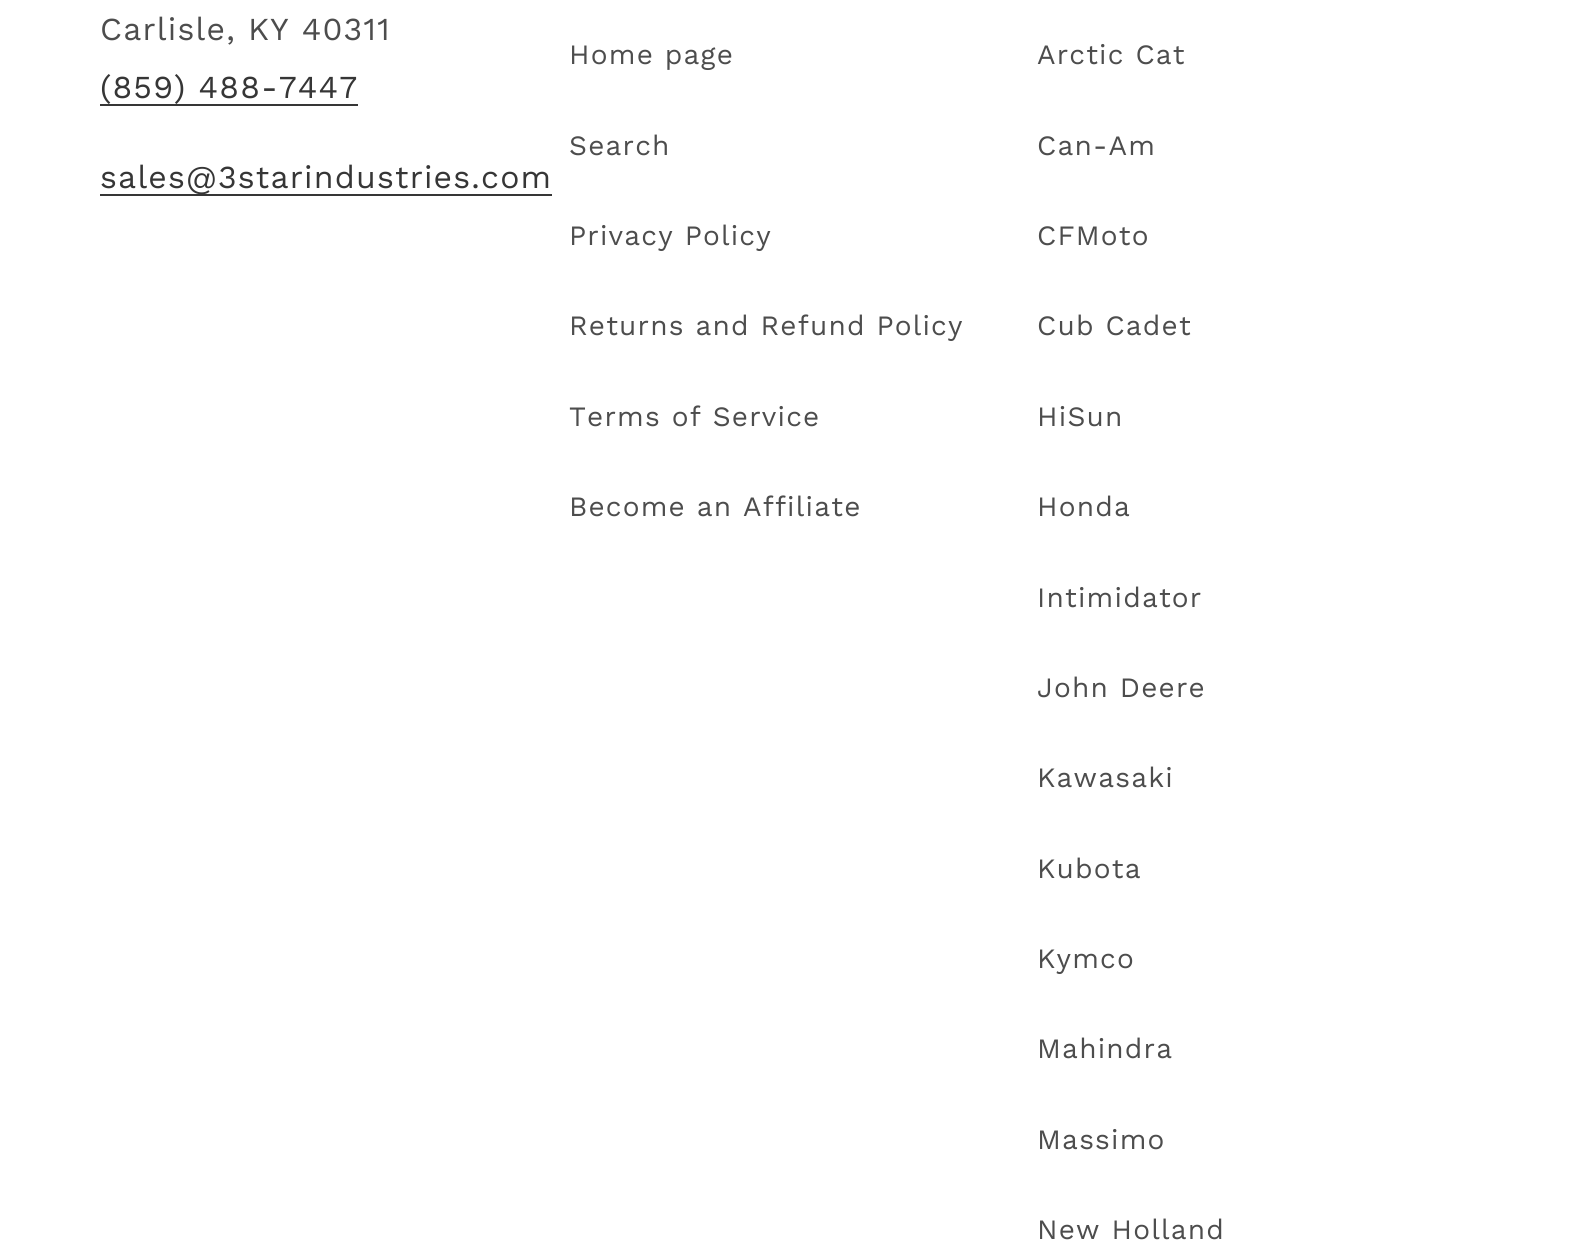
import math
import cairo


def write_spaced(ctx, x, y, s, letter, word):
	ctx.move_to(x, y)
	for ch in s:
		ctx.show_text(ch)
		ctx.rel_move_to(letter + word * (ch == ' '), 0)

def draw(ctx):
	ctx.set_source_rgb(1, 1, 1)
	ctx.paint()
	ctx.select_font_face('Work Sans')
	ctx.set_font_size(32)
	ctx.set_source_rgb(0.302, 0.302, 0.302)
	write_spaced(ctx, 100, 40, 'Carlisle, KY 40311', 1.2, 0)
	ctx.set_source_rgb(0.212, 0.212, 0.212)
	write_spaced(ctx, 100, 98, '(859) 488-7447', 1.2, 0)
	ctx.rectangle(100, 104, 258, 2)
	ctx.fill()
	ctx.rectangle(100, 194, 452, 2)
	ctx.fill()
	write_spaced(ctx, 100, 188, 'sales@3starindustries.com', 1.2, 0)
	ctx.set_font_size(28)
	ctx.set_source_rgb(0.302, 0.302, 0.302)
	for x, y, s in [
		(569, 64, 'Home page'),
		(569, 155, 'Search'),
		(569, 245, 'Privacy Policy'),
		(569, 335, 'Returns and Refund Policy'),
		(569, 426, 'Terms of Service'),
		(569, 516, 'Become an Affiliate'),
		(1037, 64, 'Arctic Cat'),
		(1037, 155, 'Can-Am'),
		(1037, 245, 'CFMoto'),
		(1037, 335, 'Cub Cadet'),
		(1037, 426, 'HiSun'),
		(1037, 516, 'Honda'),
		(1037, 607, 'Intimidator'),
		(1037, 697, 'John Deere'),
		(1037, 787, 'Kawasaki'),
		(1037, 878, 'Kubota'),
		(1037, 968, 'Kymco'),
		(1037, 1058, 'Mahindra'),
		(1037, 1149, 'Massimo'),
		(1037, 1239, 'New Holland'),
	]:
		write_spaced(ctx, x, y, s, 1.2, 0)


surface = cairo.ImageSurface(cairo.FORMAT_RGB24, 1590, 1256)
ctx = cairo.Context(surface)
options = cairo.FontOptions()
options.set_hint_metrics(cairo.HINT_METRICS_OFF)
options.set_hint_style(cairo.HINT_STYLE_NONE)
ctx.set_font_options(options)
ctx.set_miter_limit(4)
draw(ctx)
surface.write_to_png('image.png')
